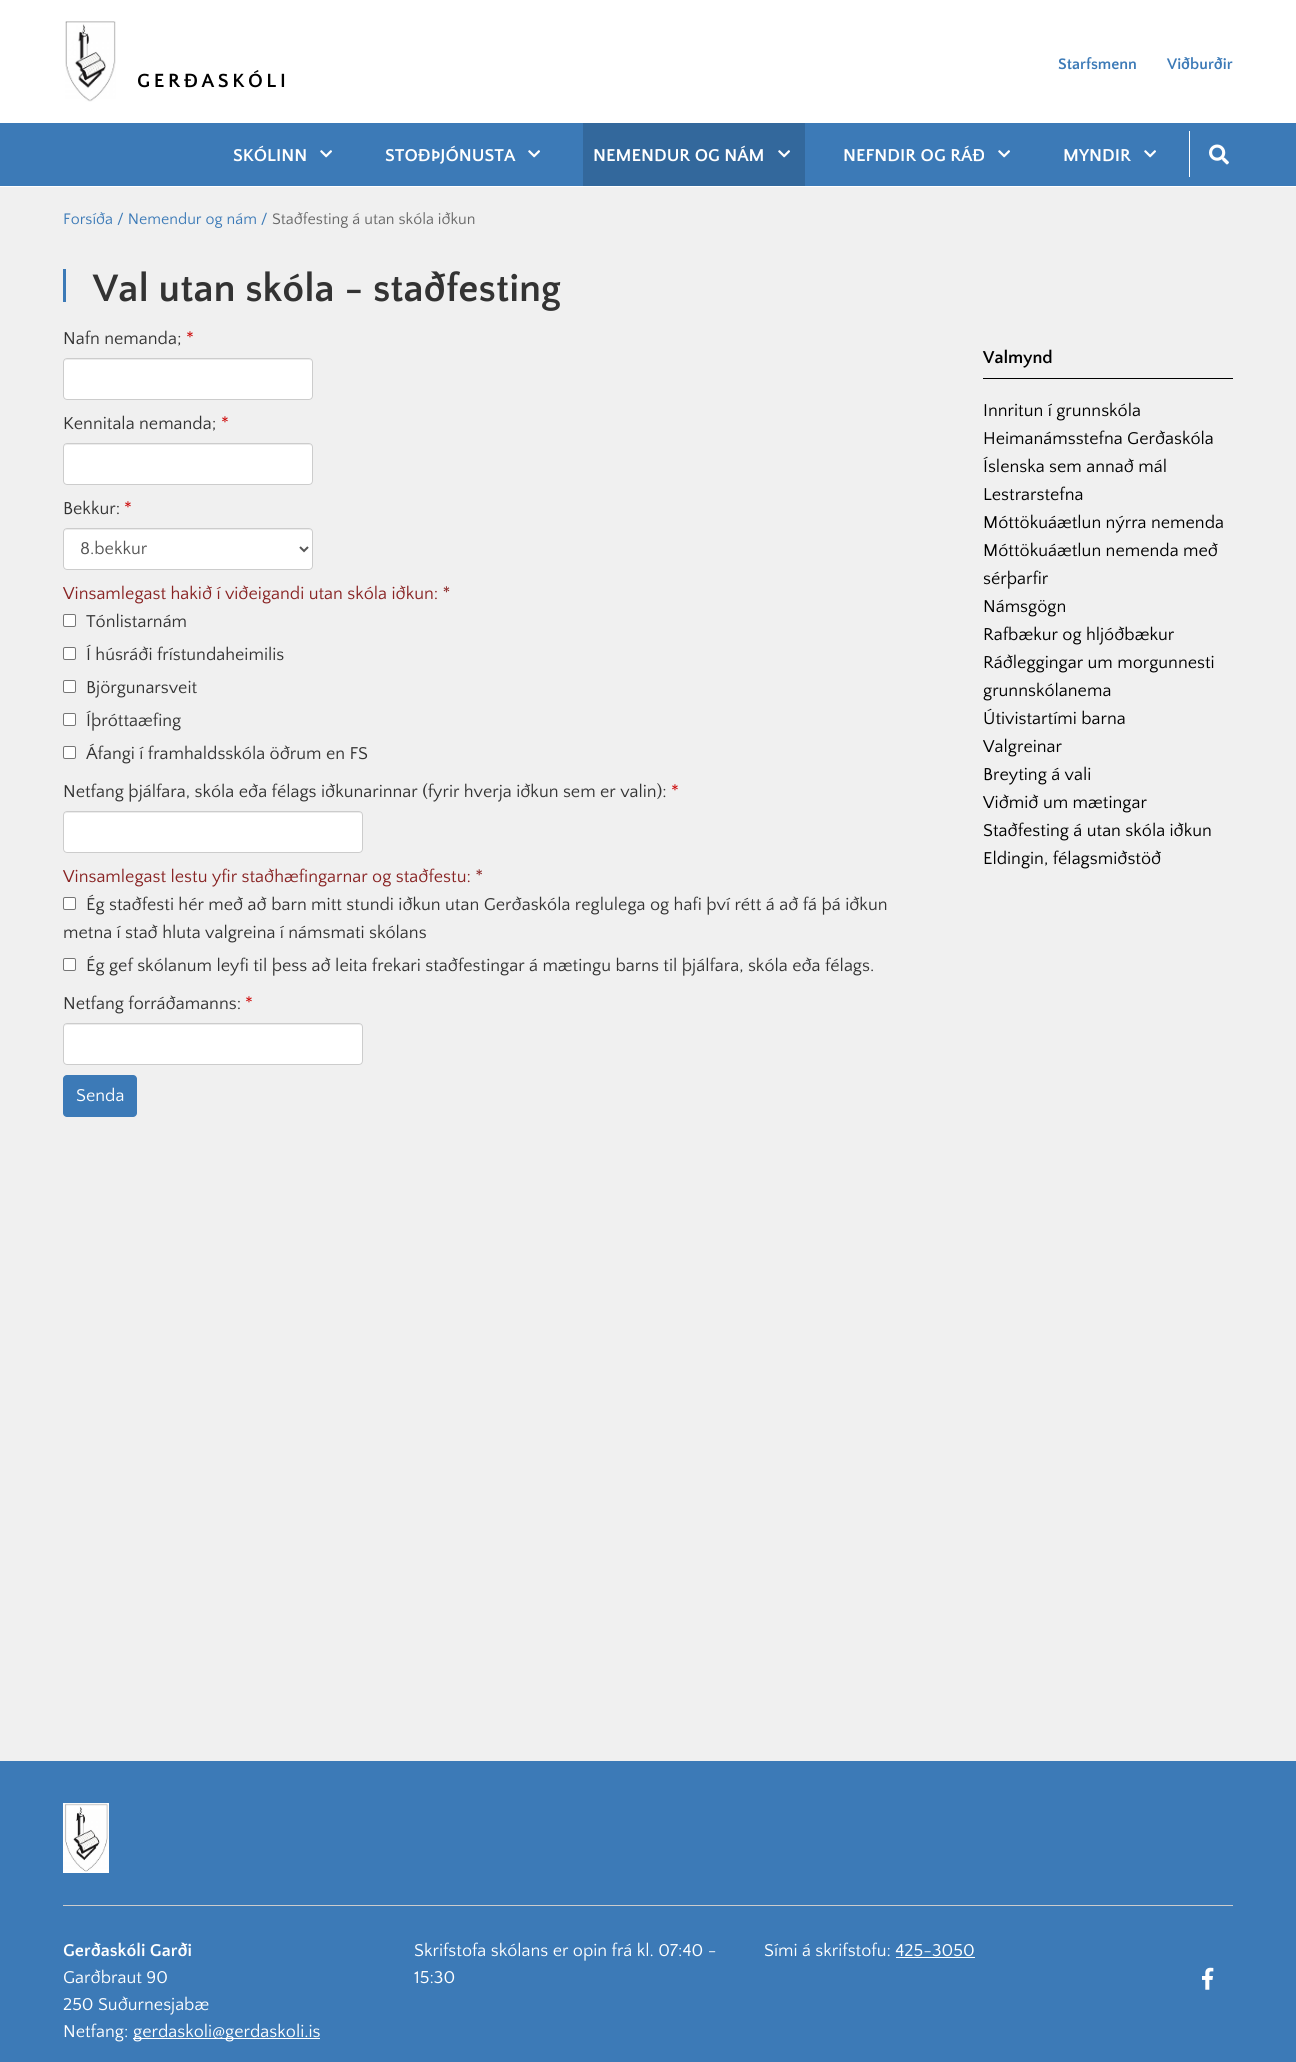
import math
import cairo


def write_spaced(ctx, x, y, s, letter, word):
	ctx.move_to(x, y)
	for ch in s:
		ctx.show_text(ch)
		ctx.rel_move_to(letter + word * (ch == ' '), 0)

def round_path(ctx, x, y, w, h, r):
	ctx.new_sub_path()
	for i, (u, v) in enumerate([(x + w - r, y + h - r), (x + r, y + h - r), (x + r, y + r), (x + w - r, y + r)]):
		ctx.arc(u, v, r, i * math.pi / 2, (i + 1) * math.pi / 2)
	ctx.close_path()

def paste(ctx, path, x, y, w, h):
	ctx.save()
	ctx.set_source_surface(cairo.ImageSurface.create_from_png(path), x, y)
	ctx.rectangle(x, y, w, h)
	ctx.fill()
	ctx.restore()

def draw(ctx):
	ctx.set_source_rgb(0.941, 0.941, 0.941)
	ctx.paint()
	ctx.set_source_rgb(1, 1, 1)
	ctx.rectangle(0, 0, 1296, 187)
	ctx.fill()
	ctx.select_font_face('Quattrocento Sans', cairo.FONT_SLANT_NORMAL, cairo.FONT_WEIGHT_BOLD)
	ctx.set_font_size(16)
	ctx.set_source_rgb(0.235, 0.478, 0.718)
	ctx.move_to(1058, 69)
	ctx.show_text('Starfsmenn')
	ctx.move_to(1167, 69)
	ctx.show_text('Viðburðir')
	paste(ctx, 'media/1.png', 65, 21, 51, 81)
	ctx.set_font_size(20)
	ctx.set_source_rgb(0, 0, 0)
	write_spaced(ctx, 137, 87, 'GERÐASKÓLI', 3.6, 0)
	ctx.set_source_rgb(0.235, 0.478, 0.718)
	ctx.rectangle(0, 123, 1296, 63)
	ctx.fill()
	ctx.set_font_size(18)
	ctx.set_source_rgb(1, 1, 1)
	ctx.move_to(233, 161)
	ctx.show_text('SKÓLINN')
	paste(ctx, 'media/2.png', 320, 150, 12, 8)
	ctx.move_to(385, 161)
	ctx.show_text('STOÐÞJÓNUSTA')
	paste(ctx, 'media/2.png', 528, 150, 12, 8)
	ctx.set_source_rgb(0.2, 0.408, 0.612)
	ctx.rectangle(583, 123, 222, 63)
	ctx.fill()
	ctx.set_source_rgb(1, 1, 1)
	ctx.move_to(593, 161)
	ctx.show_text('NEMENDUR OG NÁM')
	paste(ctx, 'media/3.png', 778, 150, 12, 8)
	ctx.move_to(843, 161)
	ctx.show_text('NEFNDIR OG RÁÐ')
	paste(ctx, 'media/2.png', 998, 150, 12, 8)
	ctx.move_to(1063, 161)
	ctx.show_text('MYNDIR')
	paste(ctx, 'media/2.png', 1144, 150, 12, 8)
	ctx.rectangle(1189, 131, 1, 46)
	ctx.fill()
	paste(ctx, 'media/4.png', 1209, 144, 20, 21)
	ctx.select_font_face('Quattrocento Sans')
	ctx.set_font_size(16)
	ctx.set_source_rgb(0.235, 0.478, 0.718)
	ctx.move_to(63, 224)
	ctx.show_text('Forsíða / Nemendur og nám /')
	ctx.set_source_rgb(0.4, 0.4, 0.4)
	ctx.move_to(272, 224)
	ctx.show_text('Staðfesting á utan skóla iðkun')
	ctx.set_source_rgb(0.235, 0.478, 0.718)
	ctx.rectangle(63, 269, 3, 33)
	ctx.fill()
	ctx.select_font_face('Quattrocento Sans', cairo.FONT_SLANT_NORMAL, cairo.FONT_WEIGHT_BOLD)
	ctx.set_font_size(40)
	ctx.set_source_rgb(0.2, 0.2, 0.2)
	ctx.move_to(93, 301)
	ctx.show_text('Val utan skóla - staðfesting')
	ctx.select_font_face('Quattrocento Sans')
	ctx.set_font_size(18)
	ctx.move_to(63, 344)
	ctx.show_text('Nafn nemanda;')
	ctx.set_source_rgb(0.8, 0, 0)
	ctx.move_to(186, 344)
	ctx.show_text('*')
	ctx.set_source_rgb(1, 1, 1)
	round_path(ctx, 63, 358, 250, 42, 4)
	ctx.fill()
	ctx.set_source_rgb(0.925, 0.925, 0.925)
	ctx.new_path()
	ctx.move_to(67, 360)
	ctx.line_to(309, 360)
	ctx.curve_to(311, 360, 312, 361, 312, 363)
	ctx.curve_to(312, 361, 311, 359, 309, 359)
	ctx.line_to(67, 359)
	ctx.curve_to(65, 359, 64, 361, 64, 363)
	ctx.curve_to(64, 361, 65, 360, 67, 360)
	ctx.close_path()
	ctx.fill()
	round_path(ctx, 63.5, 358.5, 249, 41, 3.5)
	ctx.set_source_rgb(0.8, 0.8, 0.8)
	ctx.set_line_width(1)
	ctx.stroke()
	ctx.set_source_rgb(0.2, 0.2, 0.2)
	ctx.move_to(63, 429)
	ctx.show_text('Kennitala nemanda;')
	ctx.set_source_rgb(0.8, 0, 0)
	ctx.move_to(221, 429)
	ctx.show_text('*')
	ctx.set_source_rgb(1, 1, 1)
	round_path(ctx, 63, 443, 250, 42, 4)
	ctx.fill()
	ctx.set_source_rgb(0.925, 0.925, 0.925)
	ctx.new_path()
	ctx.move_to(67, 445)
	ctx.line_to(309, 445)
	ctx.curve_to(311, 445, 312, 446, 312, 448)
	ctx.curve_to(312, 446, 311, 444, 309, 444)
	ctx.line_to(67, 444)
	ctx.curve_to(65, 444, 64, 446, 64, 448)
	ctx.curve_to(64, 446, 65, 445, 67, 445)
	ctx.close_path()
	ctx.fill()
	round_path(ctx, 63.5, 443.5, 249, 41, 3.5)
	ctx.set_source_rgb(0.8, 0.8, 0.8)
	ctx.stroke()
	ctx.set_source_rgb(0.2, 0.2, 0.2)
	ctx.move_to(63, 514)
	ctx.show_text('Bekkur:')
	ctx.set_source_rgb(0.8, 0, 0)
	ctx.move_to(124, 514)
	ctx.show_text('*')
	ctx.set_source_rgb(1, 1, 1)
	round_path(ctx, 63, 528, 250, 42, 4)
	ctx.fill()
	ctx.set_source_rgb(0.925, 0.925, 0.925)
	ctx.new_path()
	ctx.move_to(67, 530)
	ctx.line_to(309, 530)
	ctx.curve_to(311, 530, 312, 531, 312, 533)
	ctx.curve_to(312, 531, 311, 529, 309, 529)
	ctx.line_to(67, 529)
	ctx.curve_to(65, 529, 64, 531, 64, 533)
	ctx.curve_to(64, 531, 65, 530, 67, 530)
	ctx.close_path()
	ctx.fill()
	round_path(ctx, 63.5, 528.5, 249, 41, 3.5)
	ctx.set_source_rgb(0.8, 0.8, 0.8)
	ctx.stroke()
	ctx.new_path()
	ctx.move_to(300, 547)
	ctx.line_to(304, 551)
	ctx.line_to(308, 547)
	ctx.set_source_rgb(0.333, 0.333, 0.333)
	ctx.set_line_width(2)
	ctx.stroke()
	ctx.move_to(80, 554)
	ctx.show_text('8.bekkur')
	ctx.set_source_rgb(0.533, 0.133, 0.133)
	ctx.move_to(63, 599)
	ctx.show_text('Vinsamlegast hakið í viðeigandi utan skóla iðkun: *')
	ctx.set_source_rgb(1, 1, 1)
	round_path(ctx, 63.5, 614.5, 12, 12, 1.5)
	ctx.fill_preserve()
	ctx.set_source_rgb(0.463, 0.463, 0.463)
	ctx.set_line_width(1)
	ctx.stroke()
	ctx.set_source_rgb(0.2, 0.2, 0.2)
	ctx.move_to(86, 627)
	ctx.show_text('Tónlistarnám')
	ctx.set_source_rgb(1, 1, 1)
	round_path(ctx, 63.5, 647.5, 12, 12, 1.5)
	ctx.fill_preserve()
	ctx.set_source_rgb(0.463, 0.463, 0.463)
	ctx.stroke()
	ctx.set_source_rgb(0.2, 0.2, 0.2)
	ctx.move_to(86, 660)
	ctx.show_text('Í húsráði frístundaheimilis')
	ctx.set_source_rgb(1, 1, 1)
	round_path(ctx, 63.5, 680.5, 12, 12, 1.5)
	ctx.fill_preserve()
	ctx.set_source_rgb(0.463, 0.463, 0.463)
	ctx.stroke()
	ctx.set_source_rgb(0.2, 0.2, 0.2)
	ctx.move_to(86, 693)
	ctx.show_text('Björgunarsveit')
	ctx.set_source_rgb(1, 1, 1)
	round_path(ctx, 63.5, 713.5, 12, 12, 1.5)
	ctx.fill_preserve()
	ctx.set_source_rgb(0.463, 0.463, 0.463)
	ctx.stroke()
	ctx.set_source_rgb(0.2, 0.2, 0.2)
	ctx.move_to(86, 726)
	ctx.show_text('Íþróttaæfing')
	ctx.set_source_rgb(1, 1, 1)
	round_path(ctx, 63.5, 746.5, 12, 12, 1.5)
	ctx.fill_preserve()
	ctx.set_source_rgb(0.463, 0.463, 0.463)
	ctx.stroke()
	ctx.set_source_rgb(0.2, 0.2, 0.2)
	ctx.move_to(86, 759)
	ctx.show_text('Áfangi í framhaldsskóla öðrum en FS')
	ctx.move_to(63, 797)
	ctx.show_text('Netfang þjálfara, skóla eða félags iðkunarinnar (fyrir hverja iðkun sem er valin):')
	ctx.set_source_rgb(0.8, 0, 0)
	ctx.move_to(671, 797)
	ctx.show_text('*')
	ctx.set_source_rgb(1, 1, 1)
	round_path(ctx, 63, 811, 300, 42, 4)
	ctx.fill()
	ctx.set_source_rgb(0.925, 0.925, 0.925)
	ctx.new_path()
	ctx.move_to(67, 813)
	ctx.line_to(359, 813)
	ctx.curve_to(361, 813, 362, 814, 362, 816)
	ctx.line_to(361, 813)
	ctx.line_to(360, 812)
	ctx.line_to(67, 812)
	ctx.curve_to(65, 812, 64, 814, 64, 816)
	ctx.curve_to(64, 814, 65, 813, 67, 813)
	ctx.close_path()
	ctx.fill()
	round_path(ctx, 63.5, 811.5, 299, 41, 3.5)
	ctx.set_source_rgb(0.8, 0.8, 0.8)
	ctx.stroke()
	ctx.set_source_rgb(0.533, 0.133, 0.133)
	ctx.move_to(63, 882)
	ctx.show_text('Vinsamlegast lestu yfir staðhæfingarnar og staðfestu: *')
	ctx.set_source_rgb(1, 1, 1)
	round_path(ctx, 63.5, 897.5, 12, 12, 1.5)
	ctx.fill_preserve()
	ctx.set_source_rgb(0.463, 0.463, 0.463)
	ctx.stroke()
	ctx.set_source_rgb(0.2, 0.2, 0.2)
	ctx.move_to(86, 910)
	ctx.show_text('Ég staðfesti hér með að barn mitt stundi iðkun utan Gerðaskóla reglulega og hafi því rétt á að fá þá iðkun')
	ctx.move_to(63, 938)
	ctx.show_text('metna í stað hluta valgreina í námsmati skólans')
	ctx.set_source_rgb(1, 1, 1)
	round_path(ctx, 63.5, 958.5, 12, 12, 1.5)
	ctx.fill_preserve()
	ctx.set_source_rgb(0.463, 0.463, 0.463)
	ctx.stroke()
	ctx.set_source_rgb(0.2, 0.2, 0.2)
	ctx.move_to(86, 971)
	ctx.show_text('Ég gef skólanum leyfi til þess að leita frekari staðfestingar á mætingu barns til þjálfara, skóla eða félags.')
	ctx.move_to(63, 1009)
	ctx.show_text('Netfang forráðamanns:')
	ctx.set_source_rgb(0.8, 0, 0)
	ctx.move_to(245, 1009)
	ctx.show_text('*')
	ctx.set_source_rgb(1, 1, 1)
	round_path(ctx, 63, 1023, 300, 42, 4)
	ctx.fill()
	ctx.set_source_rgb(0.925, 0.925, 0.925)
	ctx.new_path()
	ctx.move_to(67, 1025)
	ctx.line_to(359, 1025)
	ctx.curve_to(361, 1025, 362, 1026, 362, 1028)
	ctx.line_to(361, 1025)
	ctx.line_to(360, 1024)
	ctx.line_to(67, 1024)
	ctx.curve_to(65, 1024, 64, 1026, 64, 1028)
	ctx.curve_to(64, 1026, 65, 1025, 67, 1025)
	ctx.close_path()
	ctx.fill()
	round_path(ctx, 63.5, 1023.5, 299, 41, 3.5)
	ctx.set_source_rgb(0.8, 0.8, 0.8)
	ctx.stroke()
	ctx.set_source_rgb(0.235, 0.478, 0.718)
	round_path(ctx, 63, 1075, 74, 42, 4)
	ctx.fill()
	ctx.set_source_rgb(1, 1, 1)
	ctx.move_to(76, 1101)
	ctx.show_text('Senda')
	ctx.set_source_rgb(0, 0, 0)
	ctx.rectangle(983, 378, 250, 1)
	ctx.fill()
	ctx.select_font_face('Quattrocento Sans', cairo.FONT_SLANT_NORMAL, cairo.FONT_WEIGHT_BOLD)
	ctx.move_to(983, 363)
	ctx.show_text('Valmynd')
	ctx.select_font_face('Quattrocento Sans')
	for x, y, s in [
		(983, 416, 'Innritun í grunnskóla'),
		(983, 444, 'Heimanámsstefna Gerðaskóla'),
		(983, 472, 'Íslenska sem annað mál'),
		(983, 500, 'Lestrarstefna'),
		(983, 528, 'Móttökuáætlun nýrra nemenda'),
		(983, 556, 'Móttökuáætlun nemenda með'),
		(983, 584, 'sérþarfir'),
		(983, 612, 'Námsgögn'),
		(983, 640, 'Rafbækur og hljóðbækur'),
		(983, 668, 'Ráðleggingar um morgunnesti'),
		(983, 696, 'grunnskólanema'),
		(983, 724, 'Útivistartími barna'),
		(983, 752, 'Valgreinar'),
		(983, 780, 'Breyting á vali'),
		(983, 808, 'Viðmið um mætingar'),
		(983, 836, 'Staðfesting á utan skóla iðkun'),
		(983, 864, 'Eldingin, félagsmiðstöð'),
	]:
		ctx.move_to(x, y)
		ctx.show_text(s)
	ctx.set_source_rgb(0.235, 0.478, 0.718)
	ctx.rectangle(0, 1761, 1296, 301)
	ctx.fill()
	ctx.set_source_rgb(0.8, 0.8, 0.8)
	ctx.rectangle(63, 1905, 1170, 1)
	ctx.fill()
	paste(ctx, 'media/5.png', 63, 1803, 46, 70)
	ctx.select_font_face('Quattrocento Sans', cairo.FONT_SLANT_NORMAL, cairo.FONT_WEIGHT_BOLD)
	ctx.set_source_rgb(1, 1, 1)
	ctx.move_to(63, 1956)
	ctx.show_text('Gerðaskóli Garði')
	ctx.select_font_face('Quattrocento Sans')
	for x, y, s in [
		(63, 1983, 'Garðbraut 90'),
		(63, 2010, '250 Suðurnesjabæ'),
		(414, 1956, 'Skrifstofa skólans er opin frá kl. 07:40 -'),
		(414, 1983, '15:30'),
		(764, 1956, 'Sími á skrifstofu: 425-3050'),
	]:
		ctx.move_to(x, y)
		ctx.show_text(s)
	ctx.rectangle(896, 1957, 79, 1)
	ctx.fill()
	ctx.move_to(63, 2037)
	ctx.show_text('Netfang:')
	ctx.rectangle(133, 2038, 187, 1)
	ctx.fill()
	ctx.move_to(133, 2037)
	ctx.show_text('gerdaskoli@gerdaskoli.is')
	paste(ctx, 'media/6.png', 1202, 1967, 12, 23)


surface = cairo.ImageSurface(cairo.FORMAT_RGB24, 1296, 2062)
ctx = cairo.Context(surface)
options = cairo.FontOptions()
options.set_hint_metrics(cairo.HINT_METRICS_OFF)
options.set_hint_style(cairo.HINT_STYLE_NONE)
ctx.set_font_options(options)
ctx.set_miter_limit(4)
draw(ctx)
surface.write_to_png('image.png')
